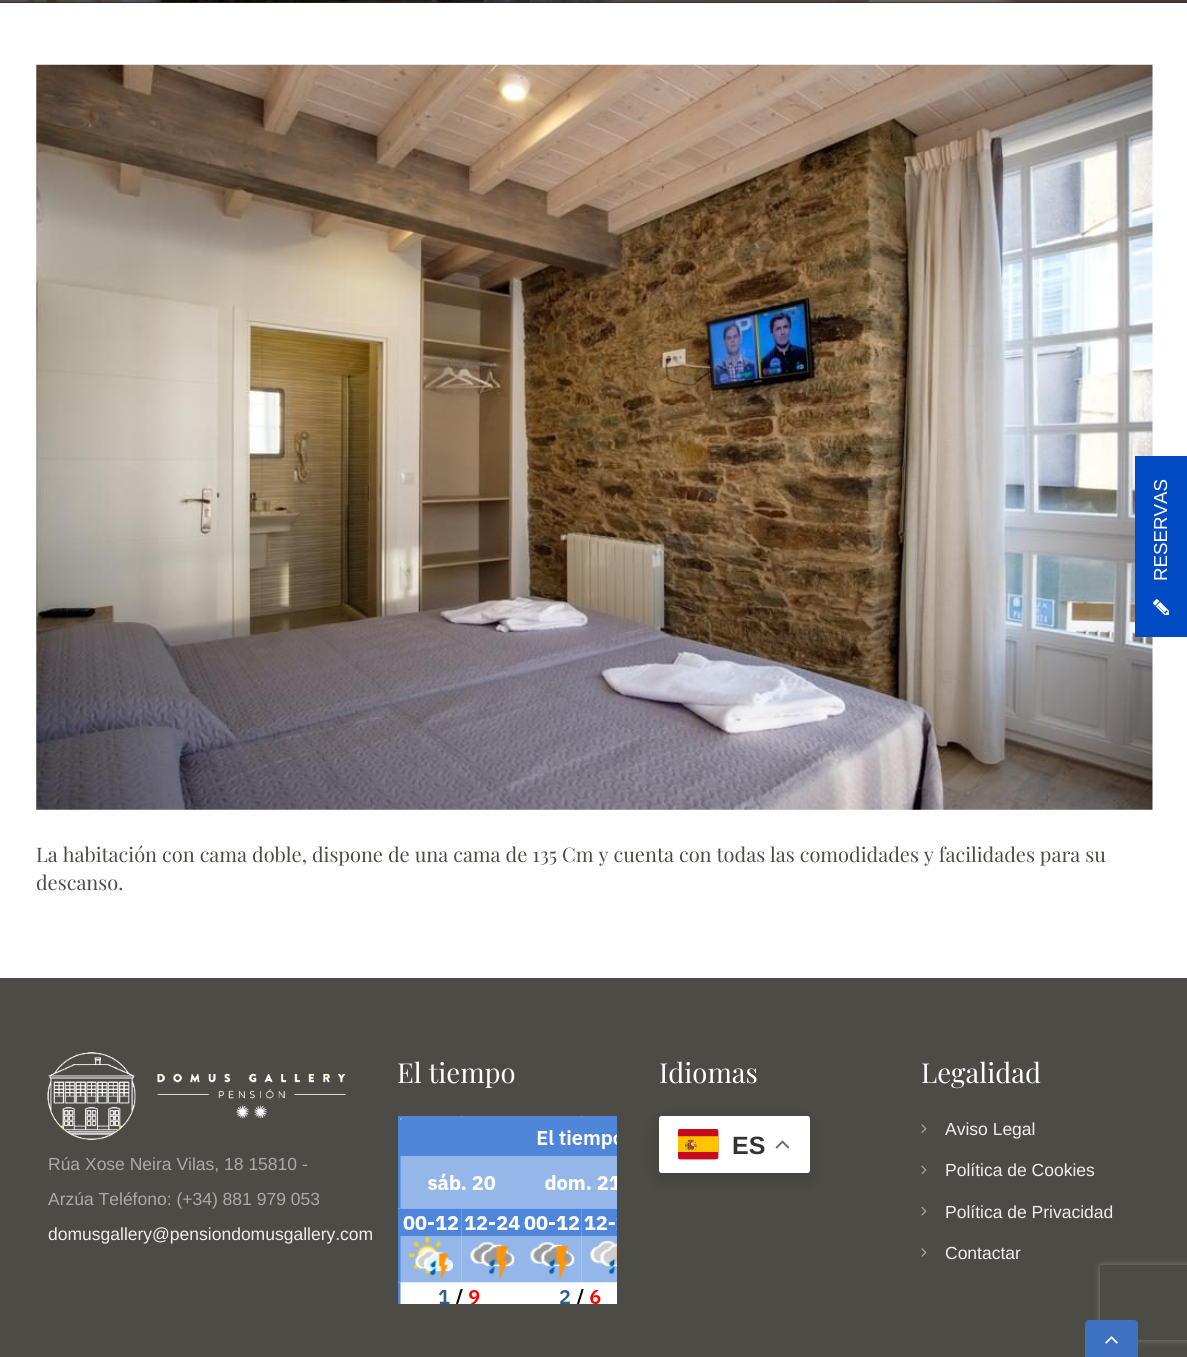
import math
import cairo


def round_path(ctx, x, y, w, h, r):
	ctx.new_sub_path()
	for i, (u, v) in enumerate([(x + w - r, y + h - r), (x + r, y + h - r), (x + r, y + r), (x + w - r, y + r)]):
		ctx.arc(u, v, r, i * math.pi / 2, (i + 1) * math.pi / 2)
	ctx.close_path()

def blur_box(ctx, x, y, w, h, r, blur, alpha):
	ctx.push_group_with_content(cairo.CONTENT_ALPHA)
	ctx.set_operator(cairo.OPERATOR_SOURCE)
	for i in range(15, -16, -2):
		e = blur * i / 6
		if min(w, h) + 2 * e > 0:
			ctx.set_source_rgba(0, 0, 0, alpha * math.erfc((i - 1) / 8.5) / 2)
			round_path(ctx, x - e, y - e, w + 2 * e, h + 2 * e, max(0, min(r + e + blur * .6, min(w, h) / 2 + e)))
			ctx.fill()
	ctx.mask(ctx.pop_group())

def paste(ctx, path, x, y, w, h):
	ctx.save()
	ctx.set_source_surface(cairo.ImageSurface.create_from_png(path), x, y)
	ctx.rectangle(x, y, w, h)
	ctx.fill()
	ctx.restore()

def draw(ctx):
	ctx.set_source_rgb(1, 1, 1)
	ctx.paint()
	ctx.set_source_rgb(0.161, 0.161, 0.161)
	ctx.rectangle(0, 2, 1187, 1)
	ctx.fill()
	paste(ctx, 'media/1.png', 0, 0, 1187, 3)
	paste(ctx, 'media/3.png', 36, 64, 1117, 746)
	ctx.set_source_rgb(0, 0.29, 0.765)
	ctx.rectangle(1135, 456, 52, 181)
	ctx.fill()
	ctx.select_font_face('Arimo')
	ctx.set_font_size(18.75)
	ctx.set_source_rgb(1, 1, 1)
	ctx.save()
	ctx.translate(1167, 581)
	ctx.rotate(-90 * math.pi / 180)
	ctx.move_to(0, 0)
	ctx.show_text('RESERVAS')
	ctx.restore()
	paste(ctx, 'media/2.png', 1153, 599, 16, 16)
	ctx.select_font_face('Playfair Display')
	ctx.set_font_size(20)
	ctx.set_source_rgb(0.298, 0.294, 0.275)
	ctx.move_to(36, 862)
	ctx.show_text('La habitación con cama doble, dispone de una cama de 135 Cm y cuenta con todas las comodidades y facilidades para su')
	ctx.move_to(36, 890)
	ctx.show_text('descanso.')
	ctx.rectangle(0, 978, 1187, 379)
	ctx.fill()
	paste(ctx, 'media/4.png', 47, 1052, 299, 88)
	ctx.select_font_face('Arimo')
	ctx.set_font_size(17.5)
	ctx.set_source_rgb(0.667, 0.667, 0.667)
	ctx.move_to(48, 1170)
	ctx.show_text('Rúa Xose Neira Vilas, 18 15810 -')
	ctx.move_to(48, 1205)
	ctx.show_text('Arzúa Teléfono: (+34) 881 979 053')
	ctx.set_source_rgb(0.933, 0.933, 0.933)
	ctx.move_to(48, 1240)
	ctx.show_text('domusgallery@pensiondomusgallery.com')
	ctx.select_font_face('Playfair Display')
	ctx.set_font_size(27.5)
	ctx.set_source_rgb(1, 1, 1)
	ctx.move_to(397, 1083)
	ctx.show_text('El tiempo')
	paste(ctx, 'media/5.png', 398, 1116, 219, 188)
	ctx.move_to(659, 1083)
	ctx.show_text('Idiomas')
	ctx.set_source_rgb(0, 0, 0)
	blur_box(ctx, 659, 1123, 151, 56, 2.5, 9.5, 0.15)
	ctx.set_source_rgb(1, 1, 1)
	round_path(ctx, 659, 1116, 151, 57, 2.5)
	ctx.fill()
	paste(ctx, 'media/6.png', 678, 1129, 41, 31)
	ctx.select_font_face('Liberation Sans', cairo.FONT_SLANT_NORMAL, cairo.FONT_WEIGHT_BOLD)
	ctx.set_font_size(25)
	ctx.set_source_rgb(0.2, 0.2, 0.2)
	ctx.move_to(732, 1154)
	ctx.show_text('ES')
	paste(ctx, 'media/7.png', 775, 1140, 14, 9)
	ctx.select_font_face('Playfair Display')
	ctx.set_font_size(27.5)
	ctx.set_source_rgb(1, 1, 1)
	ctx.move_to(921, 1083)
	ctx.show_text('Legalidad')
	paste(ctx, 'media/8.png', 921, 1124, 6, 9)
	ctx.select_font_face('Arimo')
	ctx.set_font_size(17.5)
	ctx.set_source_rgb(0.933, 0.933, 0.933)
	ctx.move_to(945, 1135)
	ctx.show_text('Aviso Legal')
	paste(ctx, 'media/9.png', 921, 1165, 6, 10)
	ctx.move_to(945, 1176)
	ctx.show_text('Política de Cookies')
	paste(ctx, 'media/10.png', 921, 1206, 6, 10)
	ctx.move_to(945, 1218)
	ctx.show_text('Política de Privacidad')
	paste(ctx, 'media/11.png', 921, 1248, 6, 9)
	ctx.move_to(945, 1259)
	ctx.show_text('Contactar')
	ctx.save()
	ctx.set_fill_rule(cairo.FILL_RULE_EVEN_ODD)
	ctx.new_path()
	ctx.move_to(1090, 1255)
	ctx.line_to(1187, 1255)
	ctx.line_to(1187, 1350)
	ctx.line_to(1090, 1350)
	ctx.close_path()
	ctx.move_to(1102.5, 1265)
	ctx.line_to(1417.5, 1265)
	ctx.curve_to(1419, 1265, 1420, 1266, 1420, 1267.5)
	ctx.line_to(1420, 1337.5)
	ctx.curve_to(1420, 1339, 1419, 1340, 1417.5, 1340)
	ctx.line_to(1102.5, 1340)
	ctx.curve_to(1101, 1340, 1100, 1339, 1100, 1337.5)
	ctx.line_to(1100, 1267.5)
	ctx.curve_to(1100, 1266, 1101, 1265, 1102.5, 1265)
	ctx.close_path()
	ctx.clip()
	ctx.set_source_rgb(0.502, 0.502, 0.502)
	blur_box(ctx, 1100, 1265, 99, 75, 2.5, 3, 1)
	ctx.restore()
	ctx.set_source_rgb(0.247, 0.443, 0.757)
	ctx.new_path()
	ctx.move_to(1089, 1320)
	ctx.line_to(1134, 1320)
	ctx.curve_to(1136, 1320, 1138, 1322, 1138, 1324)
	ctx.line_to(1138, 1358)
	ctx.line_to(1085, 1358)
	ctx.line_to(1085, 1324)
	ctx.curve_to(1085, 1322, 1087, 1320, 1089, 1320)
	ctx.close_path()
	ctx.fill()
	paste(ctx, 'media/12.png', 1105, 1336, 13, 8)


surface = cairo.ImageSurface(cairo.FORMAT_RGB24, 1187, 1357)
ctx = cairo.Context(surface)
options = cairo.FontOptions()
options.set_hint_metrics(cairo.HINT_METRICS_OFF)
options.set_hint_style(cairo.HINT_STYLE_NONE)
ctx.set_font_options(options)
ctx.set_miter_limit(4)
draw(ctx)
surface.write_to_png('image.png')
